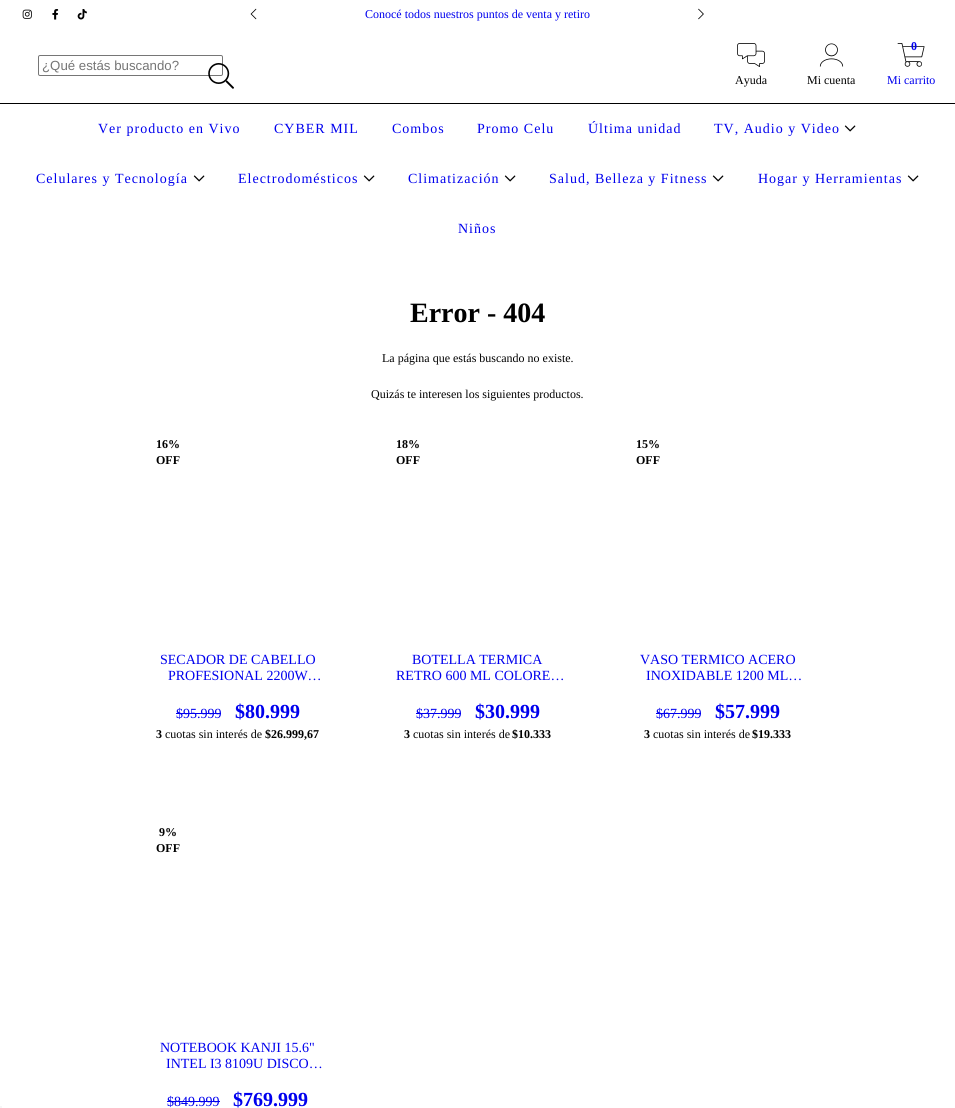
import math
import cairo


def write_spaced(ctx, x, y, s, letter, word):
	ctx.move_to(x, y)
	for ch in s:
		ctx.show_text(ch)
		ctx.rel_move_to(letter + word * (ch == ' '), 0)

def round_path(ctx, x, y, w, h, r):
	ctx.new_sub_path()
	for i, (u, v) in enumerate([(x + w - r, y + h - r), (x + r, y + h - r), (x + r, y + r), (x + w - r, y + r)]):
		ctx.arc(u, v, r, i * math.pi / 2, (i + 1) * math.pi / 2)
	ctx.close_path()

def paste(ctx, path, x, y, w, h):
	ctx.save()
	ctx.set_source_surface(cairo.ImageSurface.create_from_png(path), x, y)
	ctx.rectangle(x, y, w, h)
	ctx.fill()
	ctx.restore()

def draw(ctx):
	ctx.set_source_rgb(1, 1, 1)
	ctx.paint()
	paste(ctx, 'media/1.png', 22, 9, 10, 10)
	paste(ctx, 'media/2.png', 52, 9, 7, 11)
	paste(ctx, 'media/3.png', 77, 9, 10, 11)
	paste(ctx, 'media/4.png', 250, 8, 7, 12)
	ctx.select_font_face('Liberation Serif')
	ctx.set_font_size(12)
	ctx.set_source_rgb(0, 0, 0.933)
	ctx.move_to(365, 18)
	ctx.show_text('Conocé todos nuestros puntos de venta y retiro')
	paste(ctx, 'media/5.png', 698, 8, 6, 12)
	round_path(ctx, 38.5, 55.5, 184, 20, 1.5)
	ctx.set_source_rgb(0.463, 0.463, 0.463)
	ctx.set_line_width(1)
	ctx.stroke()
	ctx.select_font_face('Liberation Sans')
	ctx.set_font_size(13.25)
	ctx.set_source_rgb(0.459, 0.459, 0.459)
	ctx.move_to(42, 70)
	ctx.show_text('¿Qué estás buscando?')
	paste(ctx, 'media/6.png', 208, 63, 26, 26)
	paste(ctx, 'media/7.png', 737, 43, 28, 24)
	ctx.select_font_face('Liberation Serif')
	ctx.set_font_size(12)
	ctx.set_source_rgb(0, 0, 0)
	ctx.move_to(735, 84)
	ctx.show_text('Ayuda')
	paste(ctx, 'media/8.png', 819, 43, 25, 24)
	ctx.move_to(807, 84)
	ctx.show_text('Mi cuenta')
	paste(ctx, 'media/9.png', 897, 43, 28, 24)
	ctx.select_font_face('Liberation Serif', cairo.FONT_SLANT_NORMAL, cairo.FONT_WEIGHT_BOLD)
	ctx.set_source_rgb(0, 0, 0.933)
	ctx.move_to(911, 50)
	ctx.show_text('0')
	ctx.select_font_face('Liberation Serif')
	ctx.move_to(887, 84)
	ctx.show_text('Mi carrito')
	ctx.set_source_rgb(0, 0, 0)
	ctx.rectangle(0, 103, 955, 1)
	ctx.fill()
	ctx.set_font_size(14)
	ctx.set_source_rgb(0, 0, 0.933)
	for x, y, s in [
		(98, 133, 'Ver producto en Vivo'),
		(274, 133, 'CYBER MIL'),
		(392, 133, 'Combos'),
		(477, 133, 'Promo Celu'),
		(588, 133, 'Última unidad'),
		(714, 133, 'TV, Audio y Video'),
	]:
		write_spaced(ctx, x, y, s, 1, 0)
	paste(ctx, 'media/10.png', 844, 125, 12, 7)
	write_spaced(ctx, 36, 183, 'Celulares y Tecnología', 1, 0)
	paste(ctx, 'media/10.png', 193, 175, 12, 7)
	write_spaced(ctx, 238, 183, 'Electrodomésticos', 1, 0)
	paste(ctx, 'media/10.png', 363, 175, 12, 7)
	write_spaced(ctx, 408, 183, 'Climatización', 1, 0)
	paste(ctx, 'media/10.png', 504, 175, 12, 7)
	write_spaced(ctx, 549, 183, 'Salud, Belleza y Fitness', 1, 0)
	paste(ctx, 'media/10.png', 712, 175, 12, 7)
	write_spaced(ctx, 758, 183, 'Hogar y Herramientas', 1, 0)
	paste(ctx, 'media/10.png', 907, 175, 12, 7)
	write_spaced(ctx, 458, 233, 'Niños', 1, 0)
	ctx.set_source_rgb(0.961, 0.961, 0.961)
	ctx.rectangle(0, 1106, 2, 2)
	ctx.fill()
	ctx.select_font_face('Liberation Serif', cairo.FONT_SLANT_NORMAL, cairo.FONT_WEIGHT_BOLD)
	ctx.set_font_size(28)
	ctx.set_source_rgb(0, 0, 0)
	ctx.move_to(410, 322)
	ctx.show_text('Error - 404')
	ctx.select_font_face('Liberation Serif')
	ctx.set_font_size(12)
	ctx.move_to(382, 362)
	ctx.show_text('La página que estás buscando no existe.')
	ctx.move_to(371, 398)
	ctx.show_text('Quizás te interesen los siguientes productos.')
	ctx.select_font_face('Liberation Serif', cairo.FONT_SLANT_NORMAL, cairo.FONT_WEIGHT_BOLD)
	ctx.move_to(156, 448)
	ctx.show_text('16%')
	ctx.move_to(156, 464)
	ctx.show_text('OFF')
	ctx.select_font_face('Liberation Serif')
	ctx.set_font_size(14)
	ctx.set_source_rgb(0, 0, 0.933)
	for x, y, s in [
		(160, 664, 'SECADOR DE CABELLO'),
		(168, 680, 'PROFESIONAL 2200W…'),
		(176, 718, '$95.999'),
	]:
		ctx.move_to(x, y)
		ctx.show_text(s)
	ctx.rectangle(176, 713, 45, 1)
	ctx.fill()
	ctx.select_font_face('Liberation Serif', cairo.FONT_SLANT_NORMAL, cairo.FONT_WEIGHT_BOLD)
	ctx.set_font_size(20)
	ctx.move_to(235, 718)
	ctx.show_text('$80.999')
	ctx.set_font_size(12)
	ctx.set_source_rgb(0, 0, 0)
	ctx.move_to(156, 738)
	ctx.show_text('3')
	ctx.select_font_face('Liberation Serif')
	ctx.move_to(165, 738)
	ctx.show_text('cuotas sin interés de')
	ctx.select_font_face('Liberation Serif', cairo.FONT_SLANT_NORMAL, cairo.FONT_WEIGHT_BOLD)
	for x, y, s in [
		(265, 738, '$26.999,67'),
		(396, 448, '18%'),
		(396, 464, 'OFF'),
	]:
		ctx.move_to(x, y)
		ctx.show_text(s)
	ctx.select_font_face('Liberation Serif')
	ctx.set_font_size(14)
	ctx.set_source_rgb(0, 0, 0.933)
	for x, y, s in [
		(412, 664, 'BOTELLA TERMICA'),
		(396, 680, 'RETRO 600 ML COLORE…'),
		(416, 718, '$37.999'),
	]:
		ctx.move_to(x, y)
		ctx.show_text(s)
	ctx.rectangle(416, 713, 45, 1)
	ctx.fill()
	ctx.select_font_face('Liberation Serif', cairo.FONT_SLANT_NORMAL, cairo.FONT_WEIGHT_BOLD)
	ctx.set_font_size(20)
	ctx.move_to(475, 718)
	ctx.show_text('$30.999')
	ctx.set_font_size(12)
	ctx.set_source_rgb(0, 0, 0)
	ctx.move_to(404, 738)
	ctx.show_text('3')
	ctx.select_font_face('Liberation Serif')
	ctx.move_to(413, 738)
	ctx.show_text('cuotas sin interés de')
	ctx.select_font_face('Liberation Serif', cairo.FONT_SLANT_NORMAL, cairo.FONT_WEIGHT_BOLD)
	for x, y, s in [
		(512, 738, '$10.333'),
		(636, 448, '15%'),
		(636, 464, 'OFF'),
	]:
		ctx.move_to(x, y)
		ctx.show_text(s)
	ctx.select_font_face('Liberation Serif')
	ctx.set_font_size(14)
	ctx.set_source_rgb(0, 0, 0.933)
	for x, y, s in [
		(640, 664, 'VASO TERMICO ACERO'),
		(646, 680, 'INOXIDABLE 1200 ML…'),
		(656, 718, '$67.999'),
	]:
		ctx.move_to(x, y)
		ctx.show_text(s)
	ctx.rectangle(656, 713, 45, 1)
	ctx.fill()
	ctx.select_font_face('Liberation Serif', cairo.FONT_SLANT_NORMAL, cairo.FONT_WEIGHT_BOLD)
	ctx.set_font_size(20)
	ctx.move_to(715, 718)
	ctx.show_text('$57.999')
	ctx.set_font_size(12)
	ctx.set_source_rgb(0, 0, 0)
	ctx.move_to(644, 738)
	ctx.show_text('3')
	ctx.select_font_face('Liberation Serif')
	ctx.move_to(653, 738)
	ctx.show_text('cuotas sin interés de')
	ctx.select_font_face('Liberation Serif', cairo.FONT_SLANT_NORMAL, cairo.FONT_WEIGHT_BOLD)
	for x, y, s in [
		(752, 738, '$19.333'),
		(159, 836, '9%'),
		(156, 852, 'OFF'),
	]:
		ctx.move_to(x, y)
		ctx.show_text(s)
	ctx.select_font_face('Liberation Serif')
	ctx.set_font_size(14)
	ctx.set_source_rgb(0, 0, 0.933)
	for x, y, s in [
		(160, 1052, 'NOTEBOOK KANJI 15.6"'),
		(166, 1068, 'INTEL I3 8109U DISCO…'),
		(167, 1106, '$849.999'),
	]:
		ctx.move_to(x, y)
		ctx.show_text(s)
	ctx.rectangle(167, 1101, 53, 1)
	ctx.fill()
	ctx.select_font_face('Liberation Serif', cairo.FONT_SLANT_NORMAL, cairo.FONT_WEIGHT_BOLD)
	ctx.set_font_size(20)
	ctx.move_to(233, 1106)
	ctx.show_text('$769.999')


surface = cairo.ImageSurface(cairo.FORMAT_RGB24, 955, 1108)
ctx = cairo.Context(surface)
options = cairo.FontOptions()
options.set_hint_metrics(cairo.HINT_METRICS_OFF)
options.set_hint_style(cairo.HINT_STYLE_NONE)
ctx.set_font_options(options)
ctx.set_miter_limit(4)
draw(ctx)
surface.write_to_png('image.png')
